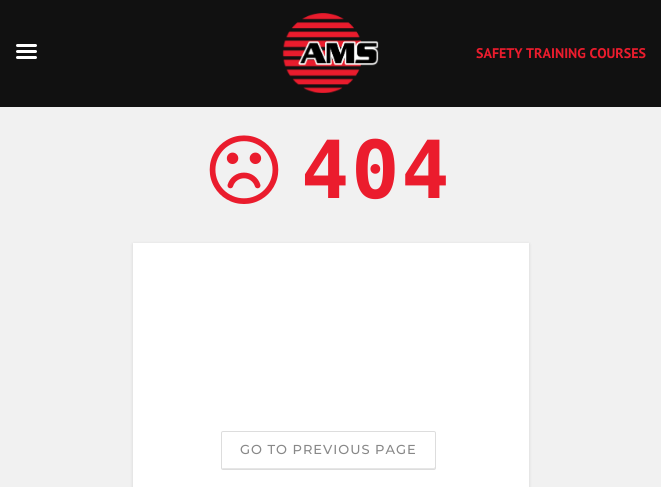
import math
import cairo


def write_spaced(ctx, x, y, s, letter, word):
	ctx.move_to(x, y)
	for ch in s:
		ctx.show_text(ch)
		ctx.rel_move_to(letter + word * (ch == ' '), 0)

def round_path(ctx, x, y, w, h, r):
	ctx.new_sub_path()
	for i, (u, v) in enumerate([(x + w - r, y + h - r), (x + r, y + h - r), (x + r, y + r), (x + w - r, y + r)]):
		ctx.arc(u, v, r, i * math.pi / 2, (i + 1) * math.pi / 2)
	ctx.close_path()

def blur_box(ctx, x, y, w, h, r, blur, alpha):
	ctx.push_group_with_content(cairo.CONTENT_ALPHA)
	ctx.set_operator(cairo.OPERATOR_SOURCE)
	for i in range(15, -16, -2):
		e = blur * i / 6
		if min(w, h) + 2 * e > 0:
			ctx.set_source_rgba(0, 0, 0, alpha * math.erfc((i - 1) / 8.5) / 2)
			round_path(ctx, x - e, y - e, w + 2 * e, h + 2 * e, max(0, min(r + e + blur * .6, min(w, h) / 2 + e)))
			ctx.fill()
	ctx.mask(ctx.pop_group())

def paste(ctx, path, x, y, w, h):
	ctx.save()
	ctx.set_source_surface(cairo.ImageSurface.create_from_png(path), x, y)
	ctx.rectangle(x, y, w, h)
	ctx.fill()
	ctx.restore()

def draw(ctx):
	ctx.set_source_rgb(0.945, 0.945, 0.945)
	ctx.paint()
	ctx.set_source_rgb(0.067, 0.067, 0.067)
	ctx.rectangle(0, 0, 661, 107)
	ctx.fill()
	paste(ctx, 'media/1.png', 282, 13, 97, 80)
	paste(ctx, 'media/2.png', 16, 44, 21, 15)
	ctx.select_font_face('PT Sans', cairo.FONT_SLANT_NORMAL, cairo.FONT_WEIGHT_BOLD)
	ctx.set_font_size(14)
	ctx.set_source_rgb(0.918, 0.11, 0.176)
	ctx.move_to(476, 58)
	ctx.show_text('SAFETY TRAINING COURSES')
	paste(ctx, 'media/3.png', 209, 135, 70, 69)
	ctx.select_font_face('DejaVu Sans Mono', cairo.FONT_SLANT_NORMAL, cairo.FONT_WEIGHT_BOLD)
	ctx.set_font_size(80)
	write_spaced(ctx, 301, 198, '404', 2, 0)
	ctx.set_source_rgb(0, 0, 0)
	blur_box(ctx, 133, 244, 396, 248, 0, 1.5, 0.13)
	ctx.set_source_rgb(1, 1, 1)
	ctx.rectangle(133, 243, 396, 244)
	ctx.fill()
	ctx.set_source_rgb(0.902, 0.902, 0.902)
	ctx.new_path()
	ctx.move_to(222, 467)
	ctx.curve_to(222, 468, 222, 469, 223, 469)
	ctx.line_to(434, 469)
	ctx.line_to(435, 469)
	ctx.line_to(435, 467)
	ctx.line_to(434, 468)
	ctx.line_to(222, 468)
	ctx.close_path()
	ctx.fill()
	round_path(ctx, 221.5, 431.5, 214, 38, 1.5)
	ctx.set_source_rgb(0.867, 0.867, 0.867)
	ctx.set_line_width(1)
	ctx.stroke()
	ctx.select_font_face('Montserrat Medium')
	ctx.set_font_size(13)
	ctx.set_source_rgb(0.533, 0.533, 0.533)
	write_spaced(ctx, 240, 454, 'GO TO PREVIOUS PAGE', 1, 0)


surface = cairo.ImageSurface(cairo.FORMAT_RGB24, 661, 487)
ctx = cairo.Context(surface)
options = cairo.FontOptions()
options.set_hint_metrics(cairo.HINT_METRICS_OFF)
options.set_hint_style(cairo.HINT_STYLE_NONE)
ctx.set_font_options(options)
ctx.set_miter_limit(4)
draw(ctx)
surface.write_to_png('image.png')
